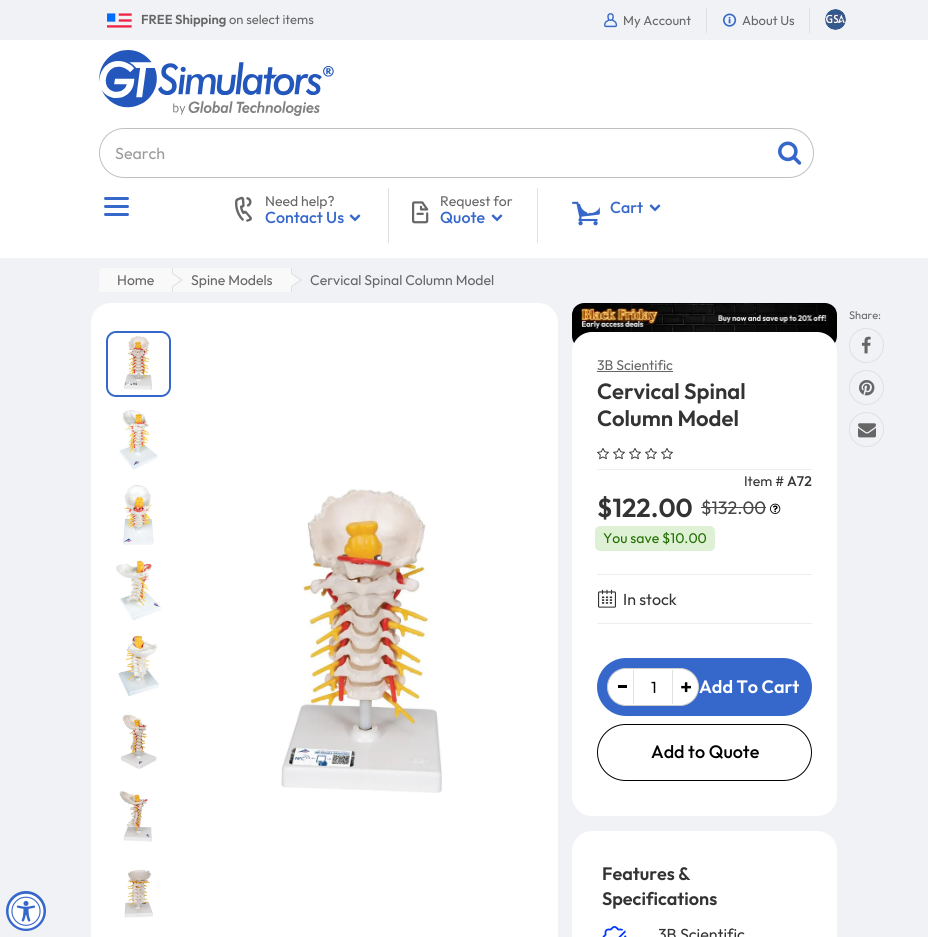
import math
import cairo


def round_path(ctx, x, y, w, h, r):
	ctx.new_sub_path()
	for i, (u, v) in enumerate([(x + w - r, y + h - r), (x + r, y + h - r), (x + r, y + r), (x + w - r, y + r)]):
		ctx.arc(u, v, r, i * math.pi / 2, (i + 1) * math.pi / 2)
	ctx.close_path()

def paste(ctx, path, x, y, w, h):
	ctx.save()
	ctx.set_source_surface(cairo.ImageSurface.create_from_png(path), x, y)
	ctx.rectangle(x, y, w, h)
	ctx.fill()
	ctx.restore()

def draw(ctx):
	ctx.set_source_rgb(0.941, 0.949, 0.961)
	ctx.paint()
	ctx.set_source_rgb(0.212, 0.408, 0.796)
	ctx.arc(26, 911, 20, 0, 2 * math.pi)
	ctx.fill()
	paste(ctx, 'media/1.png', 8, 893, 36, 36)
	ctx.set_source_rgb(1, 1, 1)
	ctx.rectangle(0, 40, 928, 218)
	ctx.fill()
	paste(ctx, 'media/2.png', 107, 13, 25, 15)
	ctx.select_font_face('Outfit SemiBold')
	ctx.set_font_size(13)
	ctx.set_source_rgb(0.4, 0.4, 0.4)
	ctx.move_to(141, 24)
	ctx.show_text('FREE Shipping')
	ctx.select_font_face('Outfit')
	ctx.move_to(229, 24)
	ctx.show_text('on select items')
	ctx.set_source_rgb(0.878, 0.878, 0.878)
	ctx.rectangle(706, 8, 1, 25)
	ctx.fill()
	paste(ctx, 'media/3.png', 604, 13, 14, 15)
	ctx.set_source_rgb(0.4, 0.4, 0.4)
	ctx.move_to(623, 25)
	ctx.show_text('My Account')
	ctx.set_source_rgb(0.878, 0.878, 0.878)
	ctx.rectangle(809, 8, 1, 25)
	ctx.fill()
	paste(ctx, 'media/4.png', 723, 13, 14, 14)
	ctx.set_source_rgb(0.4, 0.4, 0.4)
	ctx.move_to(742, 25)
	ctx.show_text('About Us')
	paste(ctx, 'media/5.png', 825, 9, 21, 21)
	paste(ctx, 'media/6.png', 99, 50, 235, 66)
	round_path(ctx, 99.5, 128.5, 714, 49, 24.5)
	ctx.set_source_rgb(0.753, 0.753, 0.753)
	ctx.set_line_width(1)
	ctx.stroke()
	ctx.set_font_size(16)
	ctx.set_source_rgb(0.612, 0.6, 0.6)
	ctx.move_to(115, 159)
	ctx.show_text('Search')
	paste(ctx, 'media/7.png', 778, 141, 24, 24)
	ctx.set_source_rgb(0.212, 0.408, 0.796)
	round_path(ctx, 104, 197, 25, 3, 1.5)
	ctx.fill()
	round_path(ctx, 104, 205, 25, 3, 1.5)
	ctx.fill()
	round_path(ctx, 104, 213, 25, 3, 1.5)
	ctx.fill()
	ctx.set_source_rgb(0.878, 0.878, 0.878)
	ctx.rectangle(388, 188, 1, 55)
	ctx.fill()
	paste(ctx, 'media/8.png', 235, 196, 17, 26)
	ctx.set_font_size(14)
	ctx.set_source_rgb(0.4, 0.4, 0.4)
	ctx.move_to(265, 206)
	ctx.show_text('Need help?')
	ctx.select_font_face('Outfit Medium')
	ctx.set_font_size(16)
	ctx.set_source_rgb(0.212, 0.408, 0.796)
	ctx.move_to(265, 223)
	ctx.show_text('Contact Us')
	paste(ctx, 'media/9.png', 349, 214, 12, 8)
	ctx.set_source_rgb(0.878, 0.878, 0.878)
	ctx.rectangle(537, 188, 1, 55)
	ctx.fill()
	paste(ctx, 'media/10.png', 412, 201, 17, 23)
	ctx.select_font_face('Outfit')
	ctx.set_font_size(14)
	ctx.set_source_rgb(0.4, 0.4, 0.4)
	ctx.move_to(440, 206)
	ctx.show_text('Request for')
	ctx.select_font_face('Outfit Medium')
	ctx.set_font_size(16)
	ctx.set_source_rgb(0.212, 0.408, 0.796)
	ctx.move_to(440, 223)
	ctx.show_text('Quote')
	paste(ctx, 'media/9.png', 491, 214, 12, 8)
	paste(ctx, 'media/11.png', 572, 201, 28, 25)
	ctx.set_source_rgb(1, 1, 1)
	ctx.arc(590.5, 202.5, 10.5, 0, 2 * math.pi)
	ctx.fill()
	ctx.set_source_rgb(0.212, 0.408, 0.796)
	ctx.move_to(610, 213)
	ctx.show_text('Cart')
	paste(ctx, 'media/9.png', 649, 204, 12, 8)
	ctx.save()
	round_path(ctx, 99, 268, 730, 25, 4)
	ctx.clip()
	ctx.set_source_rgb(0.976, 0.976, 0.976)
	ctx.new_path()
	ctx.move_to(103, 268)
	ctx.line_to(173, 268)
	ctx.line_to(173, 292)
	ctx.line_to(99, 292)
	ctx.line_to(99, 272)
	ctx.curve_to(99, 270, 101, 268, 103, 268)
	ctx.close_path()
	ctx.fill()
	ctx.restore()
	ctx.set_source_rgb(0.878, 0.878, 0.878)
	ctx.rectangle(172, 268, 1, 24)
	ctx.fill()
	ctx.set_source_rgb(0.976, 0.976, 0.976)
	ctx.rectangle(173, 268, 118, 24)
	ctx.fill()
	ctx.set_source_rgb(0.878, 0.878, 0.878)
	ctx.new_path()
	ctx.move_to(173, 287)
	ctx.line_to(173, 273)
	ctx.line_to(183, 280)
	ctx.close_path()
	ctx.fill()
	ctx.set_source_rgb(0.976, 0.976, 0.976)
	ctx.new_path()
	ctx.move_to(171, 287)
	ctx.line_to(171, 273)
	ctx.line_to(181, 280)
	ctx.close_path()
	ctx.fill()
	ctx.select_font_face('Outfit')
	ctx.set_font_size(14)
	ctx.set_source_rgb(0.4, 0.4, 0.4)
	ctx.move_to(117, 285)
	ctx.show_text('Home')
	ctx.set_source_rgb(0.878, 0.878, 0.878)
	ctx.rectangle(291, 268, 1, 24)
	ctx.fill()
	ctx.new_path()
	ctx.move_to(292, 287)
	ctx.line_to(292, 273)
	ctx.line_to(302, 280)
	ctx.close_path()
	ctx.fill()
	ctx.set_source_rgb(0.976, 0.976, 0.976)
	ctx.new_path()
	ctx.move_to(290, 287)
	ctx.line_to(290, 273)
	ctx.line_to(300, 280)
	ctx.close_path()
	ctx.fill()
	ctx.set_source_rgb(0.4, 0.4, 0.4)
	ctx.move_to(191, 285)
	ctx.show_text('Spine Models')
	ctx.move_to(310, 285)
	ctx.show_text('Cervical Spinal Column Model')
	ctx.set_source_rgb(1, 1, 1)
	round_path(ctx, 91, 303, 467, 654, 20)
	ctx.fill()
	round_path(ctx, 107, 332, 63, 64, 9)
	ctx.set_source_rgb(0.212, 0.408, 0.796)
	ctx.set_line_width(2)
	ctx.stroke()
	paste(ctx, 'media/12.png', 108, 333, 61, 62)
	paste(ctx, 'media/13.png', 119, 410, 39, 60)
	paste(ctx, 'media/14.png', 123, 485, 31, 60)
	paste(ctx, 'media/15.png', 116, 560, 45, 61)
	paste(ctx, 'media/16.png', 118, 635, 41, 62)
	paste(ctx, 'media/17.png', 121, 714, 36, 55)
	paste(ctx, 'media/18.png', 119, 791, 33, 51)
	paste(ctx, 'media/19.png', 124, 869, 29, 49)
	paste(ctx, 'media/20.png', 281, 489, 161, 304)
	ctx.set_font_size(11)
	ctx.set_source_rgb(0.4, 0.4, 0.4)
	ctx.move_to(849, 319)
	ctx.show_text('Share:')
	ctx.new_path()
	ctx.arc(866.5, 345.5, 17, 0, 2 * math.pi)
	ctx.set_source_rgb(0.878, 0.878, 0.878)
	ctx.set_line_width(1)
	ctx.stroke()
	paste(ctx, 'media/21.png', 861, 336, 10, 18)
	ctx.arc(866.5, 387.5, 17, 0, 2 * math.pi)
	ctx.stroke()
	paste(ctx, 'media/22.png', 859, 380, 16, 16)
	ctx.arc(866.5, 429.5, 17, 0, 2 * math.pi)
	ctx.stroke()
	paste(ctx, 'media/23.png', 858, 423, 18, 15)
	paste(ctx, 'media/24.png', 572, 303, 265, 41)
	ctx.set_source_rgb(1, 1, 1)
	round_path(ctx, 572, 332, 265, 484, 20)
	ctx.fill()
	ctx.set_font_size(14)
	ctx.set_source_rgb(0.4, 0.4, 0.4)
	ctx.move_to(597, 370)
	ctx.show_text('3B Scientific')
	ctx.rectangle(597, 371, 76, 1)
	ctx.fill()
	ctx.select_font_face('Outfit SemiBold')
	ctx.set_font_size(22)
	ctx.set_source_rgb(0.2, 0.2, 0.2)
	ctx.move_to(597, 399)
	ctx.show_text('Cervical Spinal')
	ctx.move_to(597, 426)
	ctx.show_text('Column Model')
	paste(ctx, 'media/25.png', 597, 447, 12, 13)
	paste(ctx, 'media/25.png', 613, 447, 12, 13)
	paste(ctx, 'media/25.png', 629, 447, 12, 13)
	paste(ctx, 'media/25.png', 645, 447, 12, 13)
	paste(ctx, 'media/25.png', 661, 447, 12, 13)
	ctx.select_font_face('Outfit')
	ctx.set_font_size(14)
	ctx.move_to(744, 486)
	ctx.show_text('Item #')
	ctx.select_font_face('Outfit Medium')
	ctx.move_to(787, 486)
	ctx.show_text('A72')
	ctx.set_source_rgb(0.933, 0.933, 0.933)
	ctx.rectangle(597, 469, 215, 1)
	ctx.fill()
	ctx.rectangle(597, 574, 215, 1)
	ctx.fill()
	ctx.select_font_face('Outfit SemiBold')
	ctx.set_font_size(26)
	ctx.set_source_rgb(0.2, 0.2, 0.2)
	ctx.move_to(597, 517)
	ctx.show_text('$122.00')
	ctx.select_font_face('Outfit')
	ctx.set_font_size(18)
	ctx.set_source_rgb(0.278, 0.278, 0.278)
	ctx.move_to(701, 514)
	ctx.show_text('$132.00')
	ctx.rectangle(701, 507, 65, 1)
	ctx.fill()
	paste(ctx, 'media/26.png', 770, 503, 11, 11)
	ctx.set_source_rgb(0.871, 0.945, 0.835)
	round_path(ctx, 595, 526, 120, 25, 5)
	ctx.fill()
	ctx.set_font_size(14)
	ctx.set_source_rgb(0.129, 0.431, 0)
	ctx.move_to(603, 543)
	ctx.show_text('You save $10.00')
	ctx.set_source_rgb(0.933, 0.933, 0.933)
	ctx.rectangle(597, 623, 215, 1)
	ctx.fill()
	paste(ctx, 'media/27.png', 598, 589, 18, 19)
	ctx.set_font_size(16)
	ctx.set_source_rgb(0.2, 0.2, 0.2)
	ctx.move_to(623, 605)
	ctx.show_text('In stock')
	ctx.set_source_rgb(0.212, 0.408, 0.796)
	round_path(ctx, 597, 658, 215, 58, 29)
	ctx.fill()
	ctx.select_font_face('Outfit SemiBold')
	ctx.set_font_size(18)
	ctx.set_source_rgb(1, 1, 1)
	ctx.move_to(699, 693)
	ctx.show_text('Add To Cart')
	round_path(ctx, 597.5, 724.5, 214, 56, 28)
	ctx.set_source_rgb(0, 0, 0)
	ctx.stroke()
	ctx.select_font_face('Outfit Medium')
	ctx.move_to(651, 758)
	ctx.show_text('Add to Quote')
	ctx.set_source_rgb(1, 1, 1)
	round_path(ctx, 607.5, 668.5, 91, 37, 18.5)
	ctx.fill_preserve()
	ctx.set_source_rgb(0.8, 0.8, 0.8)
	ctx.stroke()
	ctx.set_source_rgb(0.878, 0.878, 0.878)
	ctx.rectangle(633, 670, 1, 34)
	ctx.fill()
	ctx.set_source_rgb(0, 0, 0)
	ctx.rectangle(618, 685, 9, 3)
	ctx.fill()
	ctx.set_source_rgb(0.878, 0.878, 0.878)
	ctx.rectangle(672, 670, 1, 34)
	ctx.fill()
	paste(ctx, 'media/28.png', 681, 682, 10, 11)
	ctx.select_font_face('Outfit')
	ctx.set_font_size(16)
	ctx.set_source_rgb(0, 0, 0)
	ctx.move_to(651, 693)
	ctx.show_text('1')
	ctx.set_source_rgb(1, 1, 1)
	round_path(ctx, 572, 831, 265, 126, 20)
	ctx.fill()
	ctx.select_font_face('Outfit SemiBold')
	ctx.set_font_size(18)
	ctx.set_source_rgb(0.2, 0.2, 0.2)
	ctx.move_to(602, 880)
	ctx.show_text('Features &')
	ctx.move_to(602, 905)
	ctx.show_text('Specifications')
	paste(ctx, 'media/29.png', 602, 926, 25, 11)
	ctx.select_font_face('Outfit')
	ctx.set_font_size(16)
	ctx.move_to(658, 940)
	ctx.show_text('3B Scientific')


surface = cairo.ImageSurface(cairo.FORMAT_RGB24, 928, 937)
ctx = cairo.Context(surface)
options = cairo.FontOptions()
options.set_hint_metrics(cairo.HINT_METRICS_OFF)
options.set_hint_style(cairo.HINT_STYLE_NONE)
ctx.set_font_options(options)
ctx.set_miter_limit(4)
draw(ctx)
surface.write_to_png('image.png')
